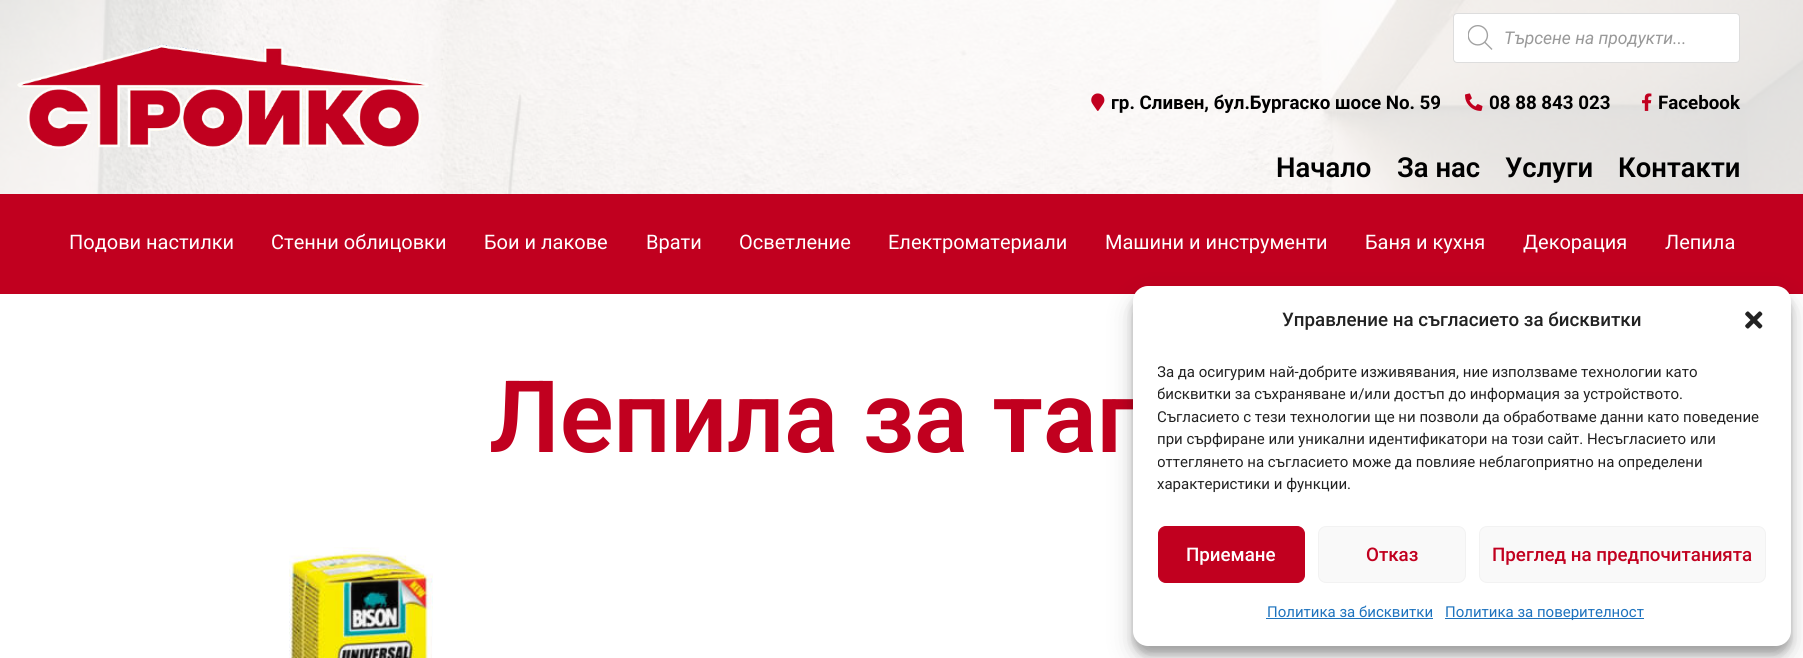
import math
import cairo


def round_path(ctx, x, y, w, h, r):
	ctx.new_sub_path()
	for i, (u, v) in enumerate([(x + w - r, y + h - r), (x + r, y + h - r), (x + r, y + r), (x + w - r, y + r)]):
		ctx.arc(u, v, r, i * math.pi / 2, (i + 1) * math.pi / 2)
	ctx.close_path()

def blur_box(ctx, x, y, w, h, r, blur, alpha):
	ctx.push_group_with_content(cairo.CONTENT_ALPHA)
	ctx.set_operator(cairo.OPERATOR_SOURCE)
	for i in range(15, -16, -2):
		e = blur * i / 6
		if min(w, h) + 2 * e > 0:
			ctx.set_source_rgba(0, 0, 0, alpha * math.erfc((i - 1) / 8.5) / 2)
			round_path(ctx, x - e, y - e, w + 2 * e, h + 2 * e, max(0, min(r + e + blur * .6, min(w, h) / 2 + e)))
			ctx.fill()
	ctx.mask(ctx.pop_group())

def paste(ctx, path, x, y, w, h):
	ctx.save()
	ctx.set_source_surface(cairo.ImageSurface.create_from_png(path), x, y)
	ctx.rectangle(x, y, w, h)
	ctx.fill()
	ctx.restore()

def draw(ctx):
	ctx.set_source_rgb(1, 1, 1)
	ctx.paint()
	paste(ctx, 'media/1.png', 0, 0, 1803, 194)
	ctx.set_source_rgba(1, 1, 1, 0.7)
	ctx.rectangle(0, 0, 1803, 194)
	ctx.fill()
	paste(ctx, 'media/2.png', 17, 44, 412, 106)
	ctx.set_source_rgb(1, 1, 1)
	round_path(ctx, 1453.5, 13.5, 286, 49, 3.5)
	ctx.fill_preserve()
	ctx.set_source_rgb(0.867, 0.867, 0.867)
	ctx.set_line_width(1)
	ctx.stroke()
	paste(ctx, 'media/3.png', 1468, 25, 25, 25)
	ctx.select_font_face('Roboto', cairo.FONT_SLANT_ITALIC)
	ctx.set_font_size(17.5)
	ctx.set_source_rgb(0.6, 0.6, 0.6)
	ctx.move_to(1504, 44)
	ctx.show_text('Търсене на продукти...')
	paste(ctx, 'media/4.png', 1091, 93, 14, 18)
	ctx.select_font_face('Roboto', cairo.FONT_SLANT_NORMAL, cairo.FONT_WEIGHT_BOLD)
	ctx.set_font_size(18.75)
	ctx.set_source_rgb(0, 0, 0)
	ctx.move_to(1111, 109)
	ctx.show_text('гр. Сливен, бул.Бургаско шосе No. 59')
	paste(ctx, 'media/5.png', 1465, 93, 18, 18)
	ctx.move_to(1489, 109)
	ctx.show_text('08 88 843 023')
	paste(ctx, 'media/6.png', 1642, 93, 10, 18)
	ctx.move_to(1658, 109)
	ctx.show_text('Facebook')
	ctx.select_font_face('Roboto SemiBold')
	ctx.set_font_size(27.5)
	for x, y, s in [
		(1276, 177, 'Начало'),
		(1397, 177, 'За нас'),
		(1505, 177, 'Услуги'),
		(1618, 177, 'Контакти'),
	]:
		ctx.move_to(x, y)
		ctx.show_text(s)
	ctx.set_source_rgb(0.757, 0, 0.122)
	ctx.rectangle(0, 194, 1803, 100)
	ctx.fill()
	ctx.select_font_face('Roboto')
	ctx.set_font_size(20)
	ctx.set_source_rgb(1, 1, 1)
	for x, y, s in [
		(69, 249, 'Подови настилки'),
		(271, 249, 'Стенни облицовки'),
		(484, 249, 'Бои и лакове'),
		(646, 249, 'Врати'),
		(739, 249, 'Осветление'),
		(888, 249, 'Електроматериали'),
		(1105, 249, 'Машини и инструменти'),
		(1365, 249, 'Баня и кухня'),
		(1523, 249, 'Декорация'),
		(1665, 249, 'Лепила'),
	]:
		ctx.move_to(x, y)
		ctx.show_text(s)
	ctx.select_font_face('Roboto SemiBold')
	ctx.set_font_size(100)
	ctx.set_source_rgb(0.757, 0, 0.122)
	ctx.move_to(489, 452)
	ctx.show_text('Лепила за тап')
	paste(ctx, 'media/7.png', 289, 547, 144, 111)
	ctx.set_source_rgb(0, 0, 0)
	blur_box(ctx, 1133, 294, 658, 360, 15, 4, 0.23)
	blur_box(ctx, 1133, 299, 658, 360, 15, 12.5, 0.19)
	ctx.set_source_rgb(1, 1, 1)
	round_path(ctx, 1133, 286, 658, 360, 15)
	ctx.fill()
	ctx.select_font_face('Roboto Medium')
	ctx.set_font_size(18.75)
	ctx.set_source_rgb(0.133, 0.133, 0.133)
	ctx.move_to(1282, 326)
	ctx.show_text('Управление на съгласието за бисквитки')
	paste(ctx, 'media/8.png', 1745, 311, 18, 18)
	ctx.save()
	ctx.rectangle(1158, 360, 608, 141)
	ctx.clip()
	ctx.select_font_face('Roboto')
	ctx.set_font_size(15)
	for x, y, s in [
		(1157, 377, 'За да осигурим най-добрите изживявания, ние използваме технологии като'),
		(1157, 399, 'бисквитки за съхраняване и/или достъп до информация за устройството.'),
		(1157, 422, 'Съгласието с тези технологии ще ни позволи да обработваме данни като поведение'),
	]:
		ctx.move_to(x, y)
		ctx.show_text(s)
	ctx.restore()
	ctx.select_font_face('Roboto')
	ctx.set_font_size(15)
	ctx.move_to(1157, 444)
	ctx.show_text('при сърфиране или уникални идентификатори на този сайт. Несъгласието или')
	ctx.save()
	ctx.rectangle(1158, 360, 608, 141)
	ctx.clip()
	ctx.move_to(1157, 467)
	ctx.show_text('оттеглянето на съгласието може да повлияе неблагоприятно на определени')
	ctx.restore()
	ctx.move_to(1157, 489)
	ctx.show_text('характеристики и функции.')
	ctx.set_source_rgb(0.757, 0, 0.122)
	round_path(ctx, 1158.5, 526.5, 146, 56, 7.5)
	ctx.fill_preserve()
	ctx.stroke()
	ctx.select_font_face('Roboto Medium')
	ctx.set_font_size(18.75)
	ctx.set_source_rgb(1, 1, 1)
	ctx.move_to(1186, 561)
	ctx.show_text('Приемане')
	ctx.set_source_rgb(0.976, 0.976, 0.976)
	round_path(ctx, 1318.5, 526.5, 147, 56, 7.5)
	ctx.fill_preserve()
	ctx.set_source_rgb(0.949, 0.949, 0.949)
	ctx.stroke()
	ctx.set_source_rgb(0.757, 0, 0.122)
	ctx.move_to(1366, 561)
	ctx.show_text('Отказ')
	ctx.set_source_rgb(0.976, 0.976, 0.976)
	round_path(ctx, 1479.5, 526.5, 286, 56, 7.5)
	ctx.fill_preserve()
	ctx.set_source_rgb(0.949, 0.949, 0.949)
	ctx.stroke()
	ctx.set_source_rgb(0.757, 0, 0.122)
	ctx.move_to(1492, 561)
	ctx.show_text('Преглед на предпочитанията')
	ctx.select_font_face('Roboto')
	ctx.set_font_size(15)
	ctx.set_source_rgb(0.118, 0.451, 0.745)
	ctx.move_to(1267, 617)
	ctx.show_text('Политика за бисквитки')
	ctx.rectangle(1266, 618, 167, 1)
	ctx.fill()
	ctx.rectangle(1445, 618, 199, 1)
	ctx.fill()
	ctx.move_to(1445, 617)
	ctx.show_text('Политика за поверителност')


surface = cairo.ImageSurface(cairo.FORMAT_RGB24, 1803, 658)
ctx = cairo.Context(surface)
options = cairo.FontOptions()
options.set_hint_metrics(cairo.HINT_METRICS_OFF)
options.set_hint_style(cairo.HINT_STYLE_NONE)
ctx.set_font_options(options)
ctx.set_miter_limit(4)
draw(ctx)
surface.write_to_png('image.png')
